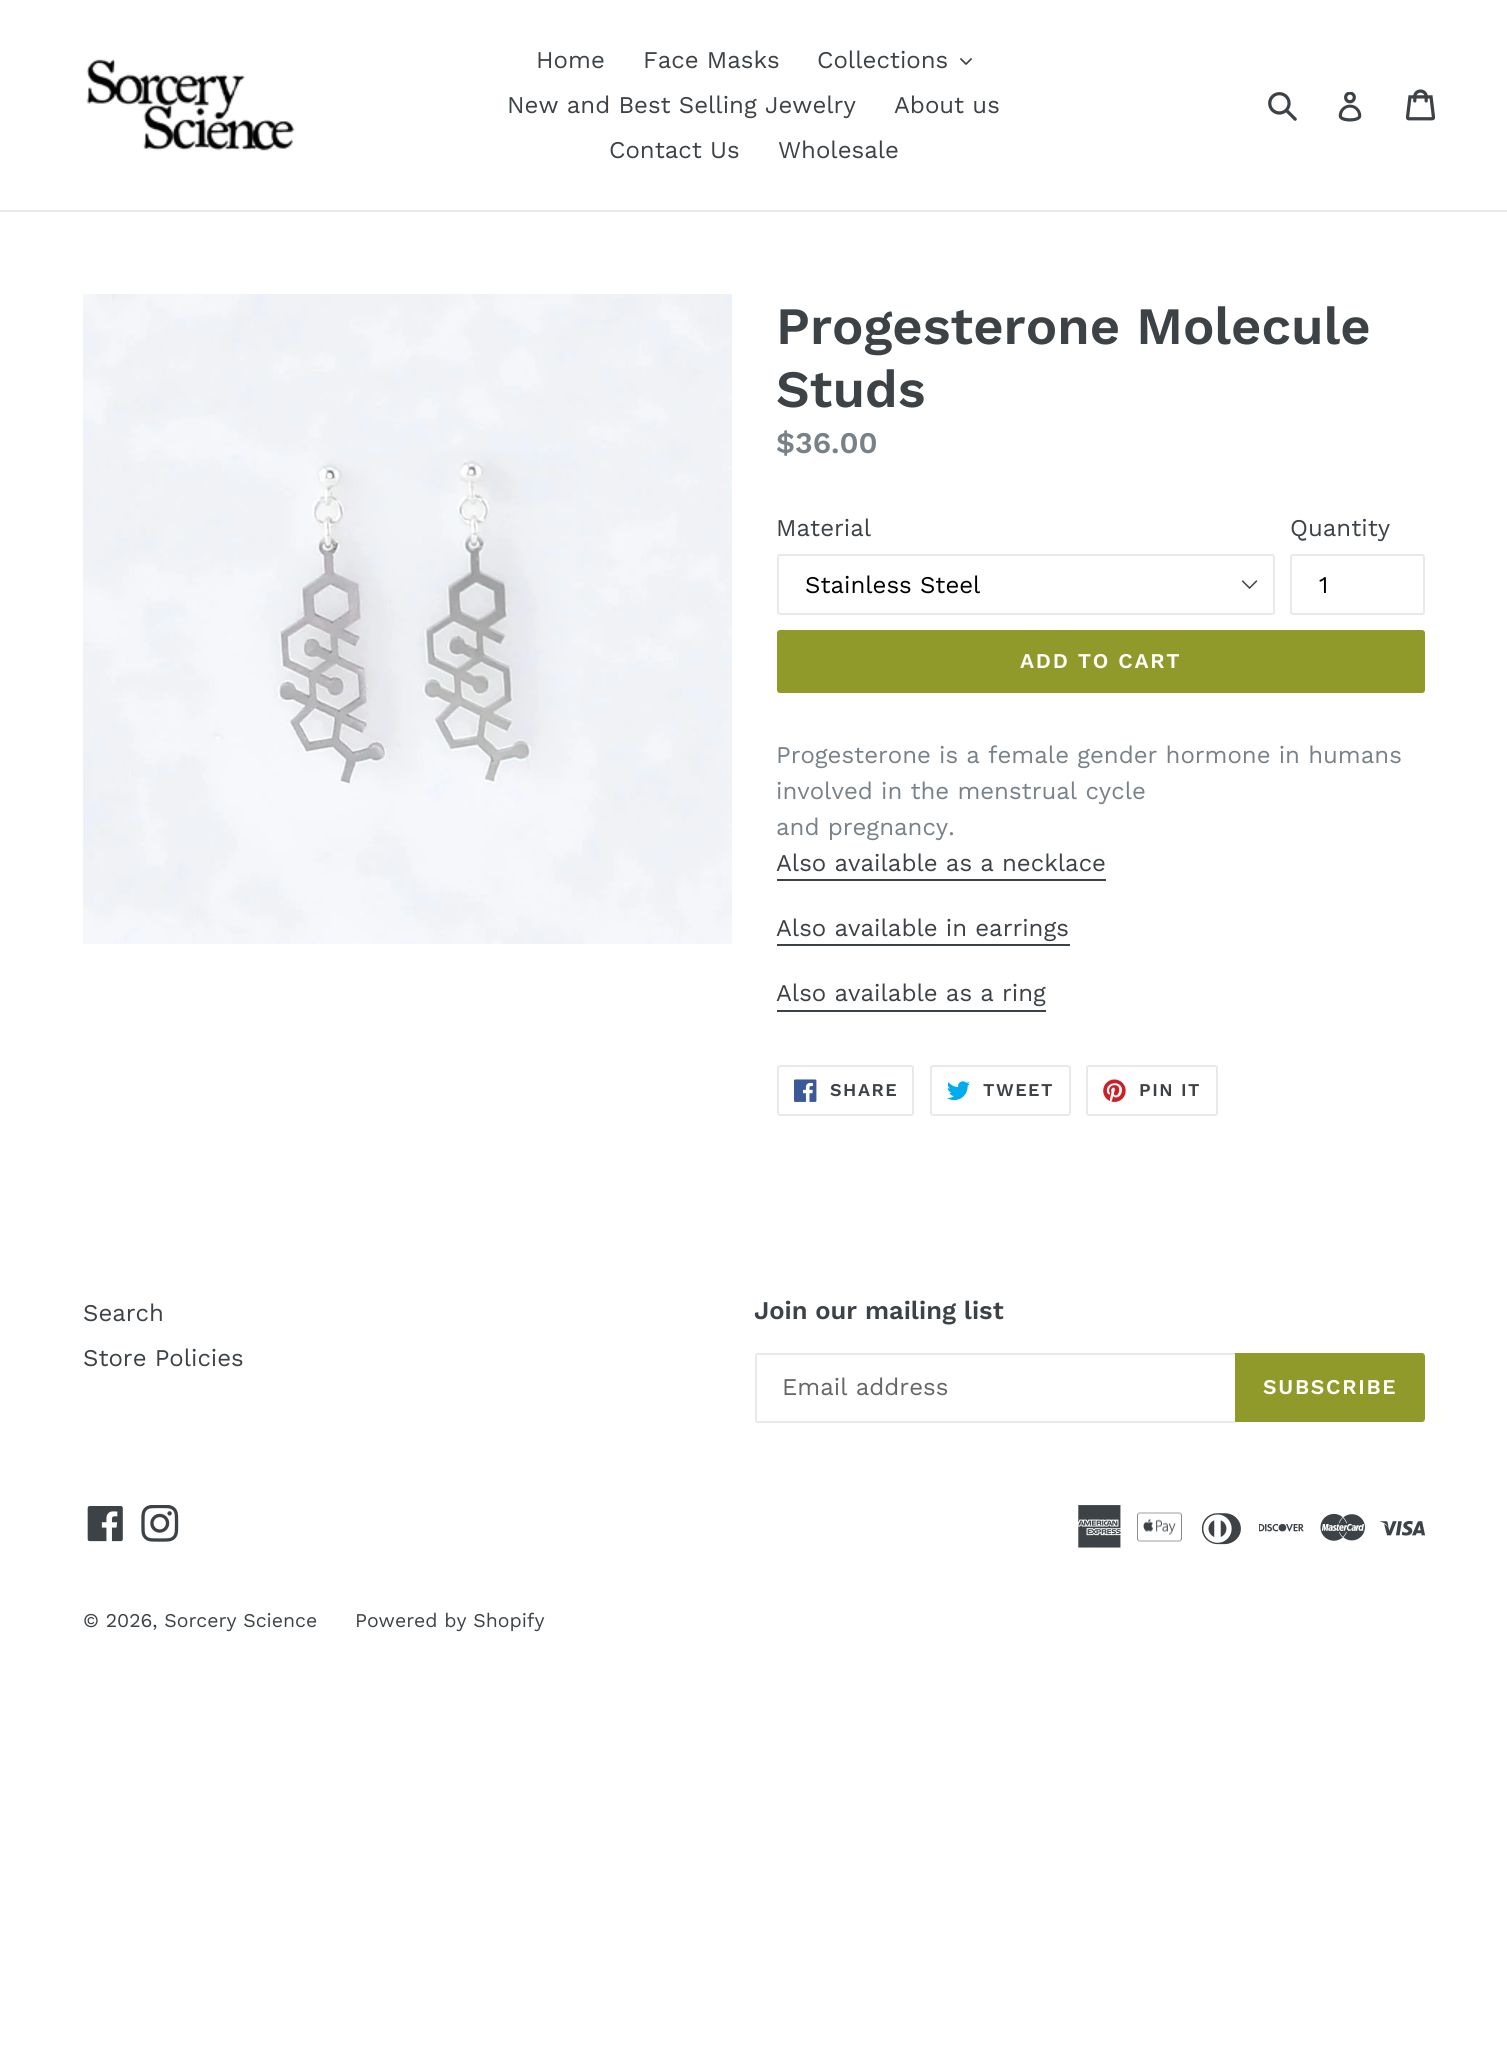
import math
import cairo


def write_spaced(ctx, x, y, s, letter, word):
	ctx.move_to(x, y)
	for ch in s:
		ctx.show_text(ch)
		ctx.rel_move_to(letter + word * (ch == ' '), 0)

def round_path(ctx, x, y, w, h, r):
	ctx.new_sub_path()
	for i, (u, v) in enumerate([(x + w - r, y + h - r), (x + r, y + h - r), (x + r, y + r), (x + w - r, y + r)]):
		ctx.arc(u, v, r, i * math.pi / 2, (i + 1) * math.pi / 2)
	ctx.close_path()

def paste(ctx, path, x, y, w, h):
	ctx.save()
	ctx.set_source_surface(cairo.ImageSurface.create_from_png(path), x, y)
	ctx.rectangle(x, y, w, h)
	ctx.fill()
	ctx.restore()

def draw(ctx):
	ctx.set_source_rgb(1, 1, 1)
	ctx.paint()
	ctx.set_source_rgb(0.91, 0.914, 0.922)
	ctx.rectangle(0, 210, 1507, 2)
	ctx.fill()
	paste(ctx, 'media/1.png', 86, 59, 209, 92)
	ctx.select_font_face('Work Sans')
	ctx.set_font_size(24)
	ctx.set_source_rgb(0.239, 0.259, 0.275)
	for x, y, s in [
		(536, 68, 'Home'),
		(643, 68, 'Face Masks'),
		(817, 68, 'Collections'),
	]:
		ctx.move_to(x, y)
		ctx.show_text(s)
	paste(ctx, 'media/2.png', 960, 58, 12, 7)
	for x, y, s in [
		(507, 113, 'New and Best Selling Jewelry'),
		(894, 113, 'About us'),
		(609, 158, 'Contact Us'),
		(778, 158, 'Wholesale'),
	]:
		ctx.move_to(x, y)
		ctx.show_text(s)
	paste(ctx, 'media/3.png', 1268, 92, 29, 29)
	paste(ctx, 'media/4.png', 1338, 92, 24, 30)
	paste(ctx, 'media/5.png', 1406, 89, 30, 32)
	paste(ctx, 'media/6.png', 83, 294, 649, 650)
	ctx.select_font_face('Work Sans SemiBold')
	ctx.set_font_size(52.5)
	ctx.move_to(776, 344)
	ctx.show_text('Progesterone Molecule')
	ctx.move_to(776, 407)
	ctx.show_text('Studs')
	ctx.set_font_size(30)
	ctx.set_source_rgb(0.471, 0.506, 0.533)
	ctx.move_to(776, 453)
	ctx.show_text('$36.00')
	ctx.select_font_face('Work Sans')
	ctx.set_font_size(24)
	ctx.set_source_rgb(0.239, 0.259, 0.275)
	ctx.move_to(776, 536)
	ctx.show_text('Material')
	paste(ctx, 'media/7.png', 1241, 580, 17, 9)
	round_path(ctx, 778, 555, 496, 59, 2)
	ctx.set_source_rgb(0.91, 0.914, 0.922)
	ctx.stroke()
	ctx.set_source_rgb(0, 0, 0)
	ctx.move_to(805, 593)
	ctx.show_text('Stainless Steel')
	ctx.set_source_rgb(0.239, 0.259, 0.275)
	ctx.move_to(1290, 536)
	ctx.show_text('Quantity')
	round_path(ctx, 1291, 555, 133, 59, 2)
	ctx.set_source_rgb(0.91, 0.914, 0.922)
	ctx.stroke()
	ctx.set_source_rgb(0, 0, 0)
	ctx.move_to(1319, 593)
	ctx.show_text('1')
	ctx.set_source_rgb(0.565, 0.604, 0.165)
	round_path(ctx, 777, 630, 648, 63, 3)
	ctx.fill()
	ctx.select_font_face('Work Sans SemiBold')
	ctx.set_font_size(21)
	ctx.set_source_rgb(1, 1, 1)
	write_spaced(ctx, 1020, 668, 'ADD TO CART', 1.75, 0)
	ctx.select_font_face('Work Sans')
	ctx.set_font_size(24)
	ctx.set_source_rgb(0.471, 0.506, 0.533)
	for x, y, s in [
		(776, 763, 'Progesterone is a female gender hormone in humans'),
		(776, 799, 'involved in the menstrual cycle'),
		(776, 835, 'and pregnancy.'),
	]:
		ctx.move_to(x, y)
		ctx.show_text(s)
	ctx.set_source_rgb(0.239, 0.259, 0.275)
	ctx.move_to(776, 871)
	ctx.show_text('Also available as a necklace')
	ctx.rectangle(777, 879, 329, 2)
	ctx.fill()
	ctx.move_to(776, 936)
	ctx.show_text('Also available in earrings')
	ctx.rectangle(777, 944, 293, 2)
	ctx.fill()
	ctx.move_to(776, 1001)
	ctx.show_text('Also available as a ring')
	ctx.rectangle(777, 1010, 269, 2)
	ctx.fill()
	round_path(ctx, 778, 1066, 135, 49, 2)
	ctx.set_source_rgb(0.91, 0.914, 0.922)
	ctx.stroke()
	paste(ctx, 'media/8.png', 794, 1079, 23, 23)
	ctx.select_font_face('Work Sans SemiBold')
	ctx.set_font_size(18)
	ctx.set_source_rgb(0.239, 0.259, 0.275)
	write_spaced(ctx, 830, 1096, 'SHARE', 1.5, 0)
	round_path(ctx, 931, 1066, 139, 49, 2)
	ctx.set_source_rgb(0.91, 0.914, 0.922)
	ctx.stroke()
	paste(ctx, 'media/9.png', 947, 1081, 23, 20)
	ctx.set_source_rgb(0.239, 0.259, 0.275)
	write_spaced(ctx, 983, 1096, 'TWEET', 1.5, 0)
	round_path(ctx, 1087, 1066, 130, 49, 2)
	ctx.set_source_rgb(0.91, 0.914, 0.922)
	ctx.stroke()
	paste(ctx, 'media/10.png', 1103, 1079, 23, 23)
	ctx.set_source_rgb(0.239, 0.259, 0.275)
	write_spaced(ctx, 1139, 1096, 'PIN IT', 1.5, 0)
	ctx.select_font_face('Work Sans')
	ctx.set_font_size(24)
	ctx.move_to(83, 1321)
	ctx.show_text('Search')
	ctx.move_to(83, 1366)
	ctx.show_text('Store Policies')
	ctx.select_font_face('Work Sans SemiBold')
	ctx.set_font_size(25.5)
	ctx.move_to(754, 1319)
	ctx.show_text('Join our mailing list')
	ctx.set_source_rgb(0.91, 0.914, 0.922)
	ctx.rectangle(756, 1353, 479, 2)
	ctx.rectangle(756, 1421, 479, 2)
	ctx.rectangle(755, 1355, 2, 66)
	ctx.fill()
	ctx.select_font_face('Work Sans')
	ctx.set_font_size(24)
	ctx.set_source_rgb(0.4, 0.4, 0.4)
	ctx.move_to(782, 1395)
	ctx.show_text('Email address')
	ctx.set_source_rgb(0.565, 0.604, 0.165)
	ctx.new_path()
	ctx.move_to(1235, 1353)
	ctx.line_to(1422, 1353)
	ctx.curve_to(1423.5, 1353, 1425, 1354.5, 1425, 1356)
	ctx.line_to(1425, 1419)
	ctx.curve_to(1425, 1420.5, 1423.5, 1422, 1422, 1422)
	ctx.line_to(1235, 1422)
	ctx.close_path()
	ctx.fill()
	ctx.select_font_face('Work Sans SemiBold')
	ctx.set_font_size(21)
	ctx.set_source_rgb(1, 1, 1)
	write_spaced(ctx, 1263, 1394, 'SUBSCRIBE', 1.75, 0)
	paste(ctx, 'media/11.png', 87, 1506, 36, 36)
	paste(ctx, 'media/12.png', 141, 1505, 38, 37)
	paste(ctx, 'media/13.png', 1078, 1505, 43, 43)
	paste(ctx, 'media/14.png', 1137, 1512, 45, 30)
	paste(ctx, 'media/15.png', 1201, 1513, 40, 32)
	paste(ctx, 'media/16.png', 1259, 1523, 45, 9)
	paste(ctx, 'media/17.png', 1320, 1513, 45, 28)
	paste(ctx, 'media/18.png', 1380, 1521, 45, 15)
	ctx.select_font_face('Work Sans')
	ctx.set_font_size(19.5)
	ctx.set_source_rgb(0.239, 0.259, 0.275)
	ctx.move_to(83, 1627)
	ctx.show_text('© 2026, Sorcery Science')
	ctx.move_to(355, 1627)
	ctx.show_text('Powered by Shopify')


surface = cairo.ImageSurface(cairo.FORMAT_RGB24, 1507, 2068)
ctx = cairo.Context(surface)
options = cairo.FontOptions()
options.set_hint_metrics(cairo.HINT_METRICS_OFF)
options.set_hint_style(cairo.HINT_STYLE_NONE)
ctx.set_font_options(options)
ctx.set_miter_limit(4)
draw(ctx)
surface.write_to_png('image.png')
